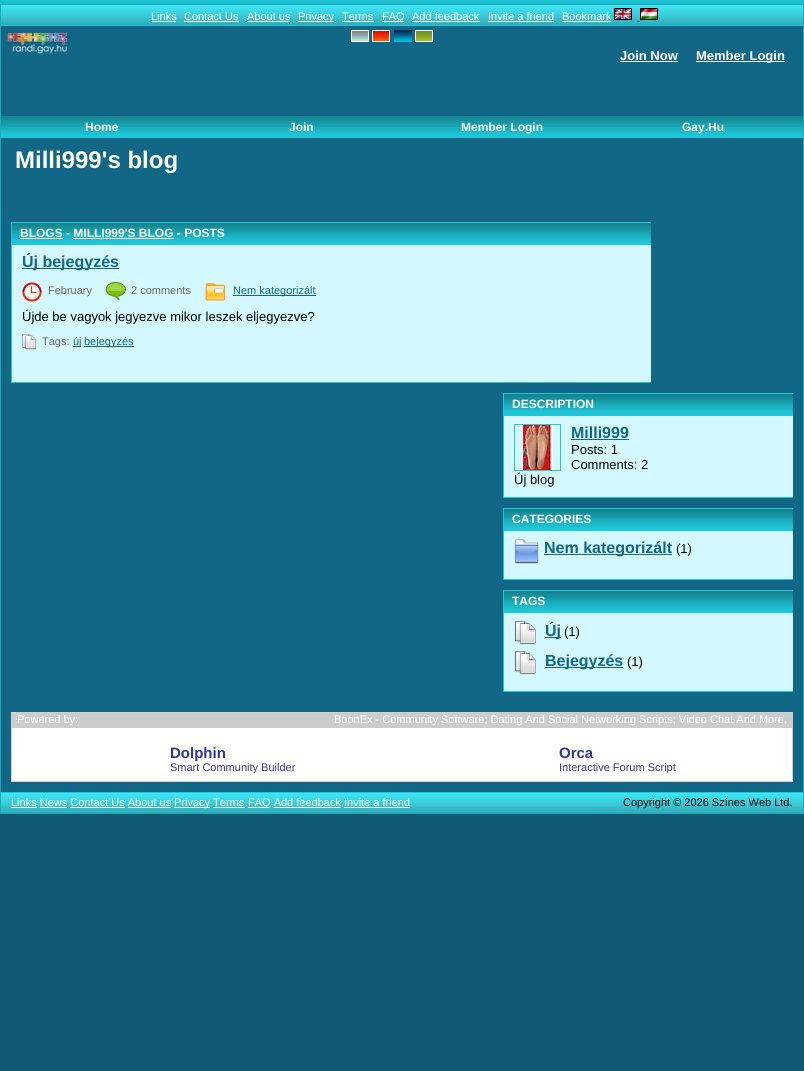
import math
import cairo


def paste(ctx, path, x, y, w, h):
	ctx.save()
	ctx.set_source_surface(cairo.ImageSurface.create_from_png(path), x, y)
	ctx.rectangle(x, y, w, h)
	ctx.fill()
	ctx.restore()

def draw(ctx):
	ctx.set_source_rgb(0.063, 0.353, 0.459)
	ctx.paint()
	paste(ctx, 'media/1.png', 0, 0, 804, 4)
	ctx.set_source_rgb(0.071, 0.404, 0.525)
	ctx.rectangle(1, 26, 802, 766)
	ctx.fill()
	ctx.rectangle(0.5, 4.5, 803, 809)
	ctx.set_source_rgb(0.102, 0.667, 0.725)
	ctx.set_line_width(1)
	ctx.stroke()
	paste(ctx, 'media/2.png', 1, 5, 802, 20)
	ctx.set_source_rgb(0.118, 0.784, 0.851)
	ctx.rectangle(1, 25, 802, 1)
	ctx.fill()
	ctx.select_font_face('Liberation Sans')
	ctx.set_font_size(11)
	ctx.set_source_rgb(1, 1, 1)
	ctx.move_to(151, 20)
	ctx.show_text('Links')
	ctx.rectangle(151, 21, 25, 1)
	ctx.fill()
	ctx.move_to(184, 20)
	ctx.show_text('Contact Us')
	ctx.rectangle(184, 21, 55, 1)
	ctx.fill()
	ctx.move_to(247, 20)
	ctx.show_text('About us')
	ctx.rectangle(247, 21, 43, 1)
	ctx.fill()
	ctx.rectangle(298, 21, 36, 1)
	ctx.fill()
	ctx.move_to(298, 20)
	ctx.show_text('Privacy')
	ctx.move_to(342, 20)
	ctx.show_text('Terms')
	ctx.rectangle(342, 21, 32, 1)
	ctx.fill()
	ctx.rectangle(382, 21, 22, 1)
	ctx.fill()
	ctx.move_to(382, 20)
	ctx.show_text('FAQ')
	ctx.move_to(412, 20)
	ctx.show_text('Add feedback')
	ctx.rectangle(412, 21, 68, 1)
	ctx.fill()
	ctx.move_to(488, 20)
	ctx.show_text('Invite a friend')
	ctx.rectangle(488, 21, 66, 1)
	ctx.fill()
	ctx.move_to(562, 20)
	ctx.show_text('Bookmark')
	ctx.rectangle(562, 21, 49, 1)
	ctx.fill()
	paste(ctx, 'media/3.png', 614, 8, 18, 12)
	paste(ctx, 'media/4.png', 640, 8, 18, 12)
	ctx.set_source_rgb(0.071, 0.404, 0.525)
	ctx.rectangle(637, 21, 3, 1)
	ctx.fill()
	paste(ctx, 'media/5.png', 6, 32, 62, 22)
	paste(ctx, 'media/6.png', 351, 30, 18, 12)
	paste(ctx, 'media/7.png', 372, 30, 18, 12)
	paste(ctx, 'media/8.png', 394, 30, 18, 12)
	paste(ctx, 'media/9.png', 415, 30, 18, 12)
	ctx.select_font_face('Liberation Sans', cairo.FONT_SLANT_NORMAL, cairo.FONT_WEIGHT_BOLD)
	ctx.set_font_size(13)
	ctx.set_source_rgb(1, 1, 1)
	ctx.move_to(620, 60)
	ctx.show_text('Join Now')
	ctx.rectangle(620, 61, 58, 1)
	ctx.fill()
	ctx.rectangle(696, 61, 89, 1)
	ctx.fill()
	ctx.move_to(696, 60)
	ctx.show_text('Member Login')
	gradient = cairo.LinearGradient(402, 116, 402, 138)
	gradient.add_color_stop_rgba(0, 0.071, 0.514, 0.561, 1)
	gradient.add_color_stop_rgba(1, 0.122, 0.784, 0.855, 1)
	ctx.set_source(gradient)
	ctx.rectangle(1, 116, 802, 22)
	ctx.fill()
	paste(ctx, 'media/10.png', 1, 127, 201, 9)
	ctx.set_font_size(12)
	ctx.set_source_rgb(1, 1, 1)
	ctx.move_to(85, 131)
	ctx.show_text('Home')
	paste(ctx, 'media/11.png', 202, 127, 200, 9)
	ctx.move_to(289, 131)
	ctx.show_text('Join')
	paste(ctx, 'media/10.png', 402, 127, 201, 9)
	ctx.move_to(461, 131)
	ctx.show_text('Member Login')
	paste(ctx, 'media/11.png', 603, 127, 200, 9)
	ctx.move_to(682, 131)
	ctx.show_text('Gay.Hu')
	ctx.set_font_size(24)
	ctx.move_to(15, 168)
	ctx.show_text('Milli999\'s blog')
	ctx.set_source_rgb(0.827, 0.969, 1)
	ctx.rectangle(12, 245, 639, 137)
	ctx.fill()
	paste(ctx, 'media/12.png', 12, 223, 639, 22)
	ctx.save()
	ctx.rectangle(11, 222, 640, 171)
	ctx.clip()
	ctx.rectangle(11.5, 222.5, 641, 160)
	ctx.set_source_rgb(0.118, 0.784, 0.851)
	ctx.stroke()
	ctx.restore()
	ctx.set_font_size(12)
	ctx.set_source_rgb(1, 1, 1)
	ctx.move_to(20, 237)
	ctx.show_text('BLOGS - MILLI999\'S BLOG - POSTS')
	ctx.rectangle(20, 238, 43, 1)
	ctx.rectangle(73, 238, 101, 1)
	ctx.fill()
	ctx.set_source_rgb(0.071, 0.404, 0.525)
	ctx.rectangle(22, 268, 97, 1)
	ctx.fill()
	ctx.set_font_size(16)
	ctx.move_to(22, 267)
	ctx.show_text('Új bejegyzés')
	paste(ctx, 'media/13.png', 22, 282, 20, 20)
	ctx.select_font_face('Liberation Sans')
	ctx.set_font_size(11)
	ctx.set_source_rgb(0.4, 0.4, 0.4)
	ctx.move_to(48, 294)
	ctx.show_text('February')
	paste(ctx, 'media/14.png', 105, 282, 21, 19)
	ctx.move_to(131, 294)
	ctx.show_text('2 comments')
	paste(ctx, 'media/15.png', 205, 283, 20, 18)
	ctx.set_source_rgb(0.071, 0.404, 0.525)
	ctx.rectangle(233, 295, 83, 1)
	ctx.fill()
	ctx.move_to(233, 294)
	ctx.show_text('Nem kategorizált')
	ctx.set_font_size(13)
	ctx.set_source_rgb(0, 0, 0)
	ctx.move_to(22, 321)
	ctx.show_text('Újde be vagyok jegyezve mikor leszek eljegyezve?')
	paste(ctx, 'media/16.png', 22, 334, 15, 16)
	ctx.set_font_size(11)
	ctx.set_source_rgb(0.4, 0.4, 0.4)
	ctx.move_to(42, 345)
	ctx.show_text('Tags:')
	ctx.set_source_rgb(0.071, 0.404, 0.525)
	ctx.rectangle(73, 346, 8, 1)
	ctx.fill()
	ctx.move_to(73, 345)
	ctx.show_text('új')
	ctx.rectangle(84, 346, 50, 1)
	ctx.fill()
	ctx.move_to(84, 345)
	ctx.show_text('bejegyzés')
	ctx.set_source_rgb(0.827, 0.969, 1)
	ctx.rectangle(504, 416, 289, 81)
	ctx.fill()
	paste(ctx, 'media/17.png', 504, 394, 289, 22)
	ctx.save()
	ctx.rectangle(503, 393, 290, 309)
	ctx.clip()
	ctx.rectangle(503.5, 393.5, 291, 104)
	ctx.set_source_rgb(0.118, 0.784, 0.851)
	ctx.stroke()
	ctx.restore()
	ctx.select_font_face('Liberation Sans', cairo.FONT_SLANT_NORMAL, cairo.FONT_WEIGHT_BOLD)
	ctx.set_font_size(12)
	ctx.set_source_rgb(1, 1, 1)
	ctx.move_to(512, 408)
	ctx.show_text('DESCRIPTION')
	paste(ctx, 'media/18.png', 523, 425, 30, 45)
	ctx.rectangle(514.5, 424.5, 46, 46)
	ctx.set_source_rgb(0.118, 0.784, 0.851)
	ctx.stroke()
	ctx.set_font_size(16)
	ctx.set_source_rgb(0.071, 0.404, 0.525)
	ctx.move_to(571, 438)
	ctx.show_text('Milli999')
	ctx.rectangle(571, 439, 58, 1)
	ctx.fill()
	ctx.select_font_face('Liberation Sans')
	ctx.set_font_size(13)
	ctx.set_source_rgb(0, 0, 0)
	for x, y, s in [
		(571, 454, 'Posts: 1'),
		(571, 469, 'Comments: 2'),
		(514, 484, 'Új blog'),
	]:
		ctx.move_to(x, y)
		ctx.show_text(s)
	ctx.set_source_rgb(0.827, 0.969, 1)
	ctx.rectangle(504, 531, 289, 48)
	ctx.fill()
	paste(ctx, 'media/17.png', 504, 509, 289, 22)
	ctx.save()
	ctx.rectangle(503, 393, 290, 309)
	ctx.clip()
	ctx.rectangle(503.5, 508.5, 291, 71)
	ctx.set_source_rgb(0.118, 0.784, 0.851)
	ctx.stroke()
	ctx.restore()
	ctx.select_font_face('Liberation Sans', cairo.FONT_SLANT_NORMAL, cairo.FONT_WEIGHT_BOLD)
	ctx.set_font_size(12)
	ctx.set_source_rgb(1, 1, 1)
	ctx.move_to(512, 523)
	ctx.show_text('CATEGORIES')
	paste(ctx, 'media/19.png', 514, 539, 25, 25)
	ctx.set_source_rgb(0.071, 0.404, 0.525)
	ctx.rectangle(544, 554, 128, 1)
	ctx.fill()
	ctx.set_font_size(16)
	ctx.move_to(544, 553)
	ctx.show_text('Nem kategorizált')
	ctx.select_font_face('Liberation Sans')
	ctx.set_font_size(13)
	ctx.set_source_rgb(0, 0, 0)
	ctx.move_to(676, 553)
	ctx.show_text('(1)')
	ctx.set_source_rgb(0.827, 0.969, 1)
	ctx.rectangle(504, 613, 289, 78)
	ctx.fill()
	paste(ctx, 'media/17.png', 504, 591, 289, 22)
	ctx.save()
	ctx.rectangle(503, 393, 290, 309)
	ctx.clip()
	ctx.rectangle(503.5, 590.5, 291, 101)
	ctx.set_source_rgb(0.118, 0.784, 0.851)
	ctx.stroke()
	ctx.restore()
	ctx.select_font_face('Liberation Sans', cairo.FONT_SLANT_NORMAL, cairo.FONT_WEIGHT_BOLD)
	ctx.set_font_size(12)
	ctx.set_source_rgb(1, 1, 1)
	ctx.move_to(512, 605)
	ctx.show_text('TAGS')
	paste(ctx, 'media/20.png', 514, 621, 22, 24)
	ctx.set_source_rgb(0.071, 0.404, 0.525)
	ctx.rectangle(545, 637, 16, 1)
	ctx.fill()
	ctx.set_font_size(16)
	ctx.move_to(545, 636)
	ctx.show_text('Új')
	ctx.select_font_face('Liberation Sans')
	ctx.set_font_size(13)
	ctx.set_source_rgb(0, 0, 0)
	ctx.move_to(564, 636)
	ctx.show_text('(1)')
	paste(ctx, 'media/20.png', 514, 651, 22, 24)
	ctx.set_source_rgb(0.071, 0.404, 0.525)
	ctx.rectangle(545, 667, 78, 1)
	ctx.fill()
	ctx.select_font_face('Liberation Sans', cairo.FONT_SLANT_NORMAL, cairo.FONT_WEIGHT_BOLD)
	ctx.set_font_size(16)
	ctx.move_to(545, 666)
	ctx.show_text('Bejegyzés')
	ctx.select_font_face('Liberation Sans')
	ctx.set_font_size(13)
	ctx.set_source_rgb(0, 0, 0)
	ctx.move_to(627, 666)
	ctx.show_text('(1)')
	ctx.set_source_rgb(1, 1, 1)
	ctx.rectangle(12, 728, 780, 53)
	ctx.fill()
	ctx.rectangle(11.5, 712.5, 781, 69)
	ctx.set_source_rgb(0.816, 0.816, 0.816)
	ctx.stroke()
	ctx.set_source_rgb(0.8, 0.8, 0.8)
	ctx.rectangle(12, 713, 780, 15)
	ctx.fill()
	ctx.set_font_size(11)
	ctx.set_source_rgb(1, 1, 1)
	ctx.move_to(17, 723)
	ctx.show_text('Powered by:')
	ctx.move_to(334, 723)
	ctx.show_text('BoonEx - Community Software; Dating And Social Networking Scripts; Video Chat And More.')
	ctx.select_font_face('Liberation Sans', cairo.FONT_SLANT_NORMAL, cairo.FONT_WEIGHT_BOLD)
	ctx.set_font_size(15)
	ctx.set_source_rgb(0.2, 0.2, 0.6)
	ctx.move_to(170, 758)
	ctx.show_text('Dolphin')
	ctx.select_font_face('Liberation Sans')
	ctx.set_font_size(11)
	ctx.move_to(170, 771)
	ctx.show_text('Smart Community Builder')
	ctx.select_font_face('Liberation Sans', cairo.FONT_SLANT_NORMAL, cairo.FONT_WEIGHT_BOLD)
	ctx.set_font_size(15)
	ctx.move_to(559, 758)
	ctx.show_text('Orca')
	ctx.select_font_face('Liberation Sans')
	ctx.set_font_size(11)
	ctx.move_to(559, 771)
	ctx.show_text('Interactive Forum Script')
	paste(ctx, 'media/2.png', 1, 793, 802, 20)
	ctx.set_source_rgb(0.118, 0.784, 0.851)
	ctx.rectangle(1, 792, 802, 1)
	ctx.fill()
	ctx.set_source_rgb(1, 1, 1)
	ctx.move_to(11, 806)
	ctx.show_text('Links News Contact Us About us')
	ctx.rectangle(11, 807, 26, 1)
	ctx.fill()
	ctx.rectangle(174, 807, 36, 1)
	ctx.fill()
	ctx.move_to(174, 806)
	ctx.show_text('Privacy Terms')
	ctx.rectangle(248, 807, 22, 1)
	ctx.fill()
	ctx.move_to(248, 806)
	ctx.show_text('FAQ Add feedback Invite a friend')
	ctx.rectangle(40, 807, 27, 1)
	ctx.rectangle(70, 807, 55, 1)
	ctx.rectangle(128, 807, 43, 1)
	ctx.rectangle(213, 807, 32, 1)
	ctx.rectangle(273, 807, 68, 1)
	ctx.rectangle(344, 807, 66, 1)
	ctx.fill()
	ctx.set_source_rgb(0, 0, 0)
	ctx.move_to(623, 806)
	ctx.show_text('Copyright © 2026 Színes Web Ltd.')


surface = cairo.ImageSurface(cairo.FORMAT_RGB24, 804, 1071)
ctx = cairo.Context(surface)
options = cairo.FontOptions()
options.set_hint_metrics(cairo.HINT_METRICS_OFF)
options.set_hint_style(cairo.HINT_STYLE_NONE)
ctx.set_font_options(options)
ctx.set_miter_limit(4)
draw(ctx)
surface.write_to_png('image.png')
